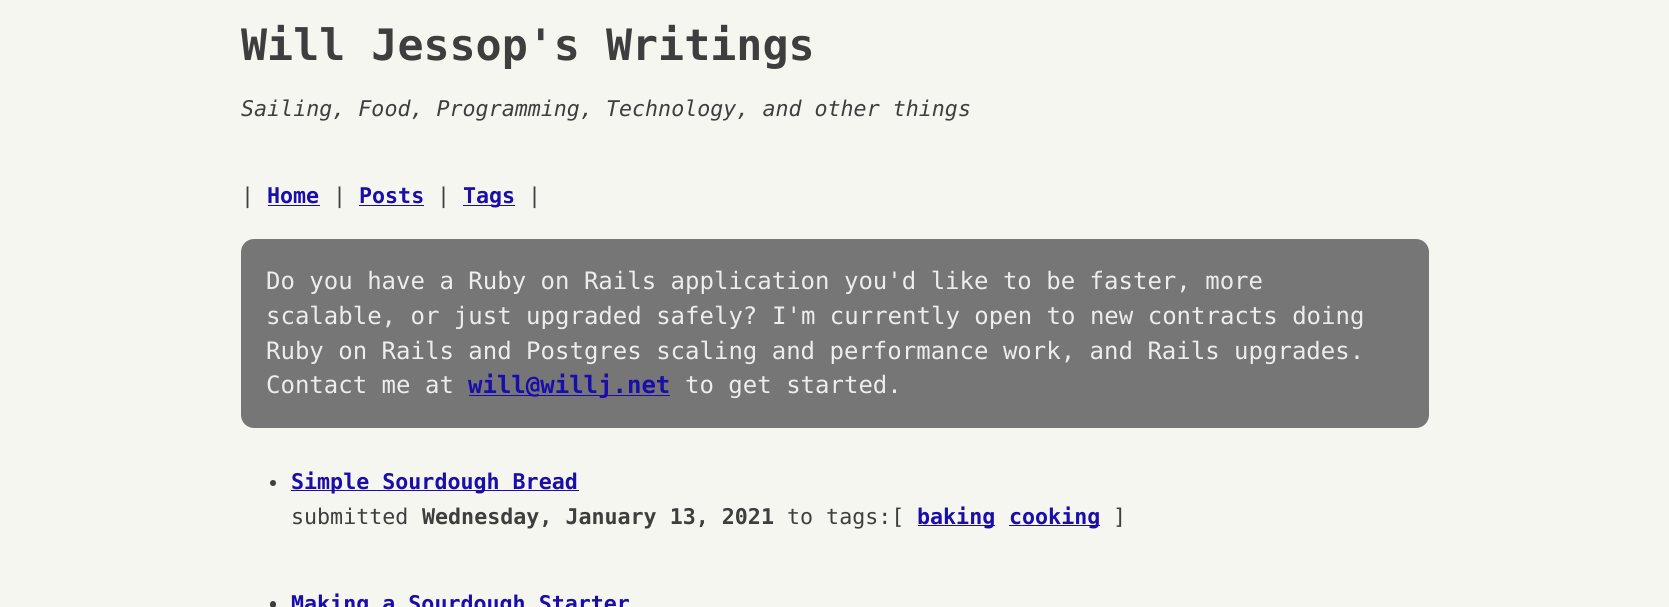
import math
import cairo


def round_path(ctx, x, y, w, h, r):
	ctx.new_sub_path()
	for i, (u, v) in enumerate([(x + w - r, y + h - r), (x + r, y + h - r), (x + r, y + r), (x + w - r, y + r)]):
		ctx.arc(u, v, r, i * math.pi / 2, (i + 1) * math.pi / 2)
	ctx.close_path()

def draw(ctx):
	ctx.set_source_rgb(0.961, 0.961, 0.941)
	ctx.paint()
	ctx.select_font_face('DejaVu Sans Mono', cairo.FONT_SLANT_NORMAL, cairo.FONT_WEIGHT_BOLD)
	ctx.set_font_size(43.3)
	ctx.set_source_rgb(0.243, 0.243, 0.243)
	ctx.move_to(241, 60)
	ctx.show_text('Will Jessop\'s Writings')
	ctx.select_font_face('DejaVu Sans Mono', cairo.FONT_SLANT_ITALIC)
	ctx.set_font_size(21.65)
	ctx.move_to(241, 116)
	ctx.show_text('Sailing, Food, Programming, Technology, and other things')
	ctx.select_font_face('DejaVu Sans Mono')
	ctx.move_to(241, 203)
	ctx.show_text('|')
	ctx.select_font_face('DejaVu Sans Mono', cairo.FONT_SLANT_NORMAL, cairo.FONT_WEIGHT_BOLD)
	ctx.set_source_rgb(0.102, 0.051, 0.671)
	ctx.move_to(267, 203)
	ctx.show_text('Home')
	ctx.rectangle(268, 205, 52, 1)
	ctx.fill()
	ctx.select_font_face('DejaVu Sans Mono')
	ctx.set_source_rgb(0.243, 0.243, 0.243)
	ctx.move_to(333, 203)
	ctx.show_text('|')
	ctx.select_font_face('DejaVu Sans Mono', cairo.FONT_SLANT_NORMAL, cairo.FONT_WEIGHT_BOLD)
	ctx.set_source_rgb(0.102, 0.051, 0.671)
	ctx.move_to(359, 203)
	ctx.show_text('Posts')
	ctx.rectangle(359, 205, 65, 1)
	ctx.fill()
	ctx.select_font_face('DejaVu Sans Mono')
	ctx.set_source_rgb(0.243, 0.243, 0.243)
	ctx.move_to(437, 203)
	ctx.show_text('|')
	ctx.set_source_rgb(0.102, 0.051, 0.671)
	ctx.rectangle(463, 205, 52, 1)
	ctx.fill()
	ctx.select_font_face('DejaVu Sans Mono', cairo.FONT_SLANT_NORMAL, cairo.FONT_WEIGHT_BOLD)
	ctx.move_to(463, 203)
	ctx.show_text('Tags')
	ctx.select_font_face('DejaVu Sans Mono')
	ctx.set_source_rgb(0.243, 0.243, 0.243)
	ctx.move_to(528, 203)
	ctx.show_text('|')
	ctx.set_source_rgb(0.463, 0.463, 0.463)
	round_path(ctx, 241, 239, 1188, 189, 13)
	ctx.fill()
	ctx.set_font_size(24)
	ctx.set_source_rgb(0.929, 0.929, 0.929)
	for x, y, s in [
		(266, 289, 'Do you have a Ruby on Rails application you\'d like to be faster, more'),
		(266, 324, 'scalable, or just upgraded safely?'),
		(772, 324, 'I\'m currently open to new contracts doing'),
		(266, 359, 'Ruby on Rails and Postgres scaling and performance work, and Rails upgrades.'),
		(266, 393, 'Contact me at'),
	]:
		ctx.move_to(x, y)
		ctx.show_text(s)
	ctx.set_source_rgb(0.102, 0.051, 0.671)
	ctx.rectangle(469, 395, 201, 1)
	ctx.fill()
	ctx.select_font_face('DejaVu Sans Mono', cairo.FONT_SLANT_NORMAL, cairo.FONT_WEIGHT_BOLD)
	ctx.move_to(468, 393)
	ctx.show_text('will@willj.net')
	ctx.select_font_face('DejaVu Sans Mono')
	ctx.set_source_rgb(0.929, 0.929, 0.929)
	ctx.move_to(685, 393)
	ctx.show_text('to get started.')
	ctx.set_source_rgb(0.243, 0.243, 0.243)
	ctx.new_path()
	ctx.arc(273, 483, 3, 0, 2 * math.pi)
	ctx.fill()
	ctx.set_source_rgb(0.102, 0.051, 0.671)
	ctx.rectangle(291, 490, 288, 1)
	ctx.fill()
	ctx.select_font_face('DejaVu Sans Mono', cairo.FONT_SLANT_NORMAL, cairo.FONT_WEIGHT_BOLD)
	ctx.set_font_size(21.65)
	ctx.move_to(291, 489)
	ctx.show_text('Simple Sourdough Bread')
	ctx.select_font_face('DejaVu Sans Mono')
	ctx.set_source_rgb(0.243, 0.243, 0.243)
	ctx.move_to(291, 524)
	ctx.show_text('submitted')
	ctx.select_font_face('DejaVu Sans Mono', cairo.FONT_SLANT_NORMAL, cairo.FONT_WEIGHT_BOLD)
	ctx.move_to(422, 524)
	ctx.show_text('Wednesday, January 13, 2021')
	ctx.select_font_face('DejaVu Sans Mono')
	ctx.move_to(787, 524)
	ctx.show_text('to tags:[')
	ctx.set_source_rgb(0.102, 0.051, 0.671)
	ctx.rectangle(918, 525, 77, 1)
	ctx.fill()
	ctx.select_font_face('DejaVu Sans Mono', cairo.FONT_SLANT_NORMAL, cairo.FONT_WEIGHT_BOLD)
	ctx.move_to(917, 524)
	ctx.show_text('baking')
	ctx.rectangle(1009, 525, 91, 1)
	ctx.fill()
	ctx.move_to(1009, 524)
	ctx.show_text('cooking')
	ctx.select_font_face('DejaVu Sans Mono')
	ctx.set_source_rgb(0.243, 0.243, 0.243)
	ctx.move_to(1113, 524)
	ctx.show_text(']')
	round_path(ctx, 270, 601, 6, 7, 3)
	ctx.fill()
	ctx.select_font_face('DejaVu Sans Mono', cairo.FONT_SLANT_NORMAL, cairo.FONT_WEIGHT_BOLD)
	ctx.set_source_rgb(0.102, 0.051, 0.671)
	ctx.move_to(291, 611)
	ctx.show_text('Making a Sourdough Starter')


surface = cairo.ImageSurface(cairo.FORMAT_RGB24, 1669, 607)
ctx = cairo.Context(surface)
options = cairo.FontOptions()
options.set_hint_metrics(cairo.HINT_METRICS_OFF)
options.set_hint_style(cairo.HINT_STYLE_NONE)
ctx.set_font_options(options)
ctx.set_miter_limit(4)
draw(ctx)
surface.write_to_png('image.png')
